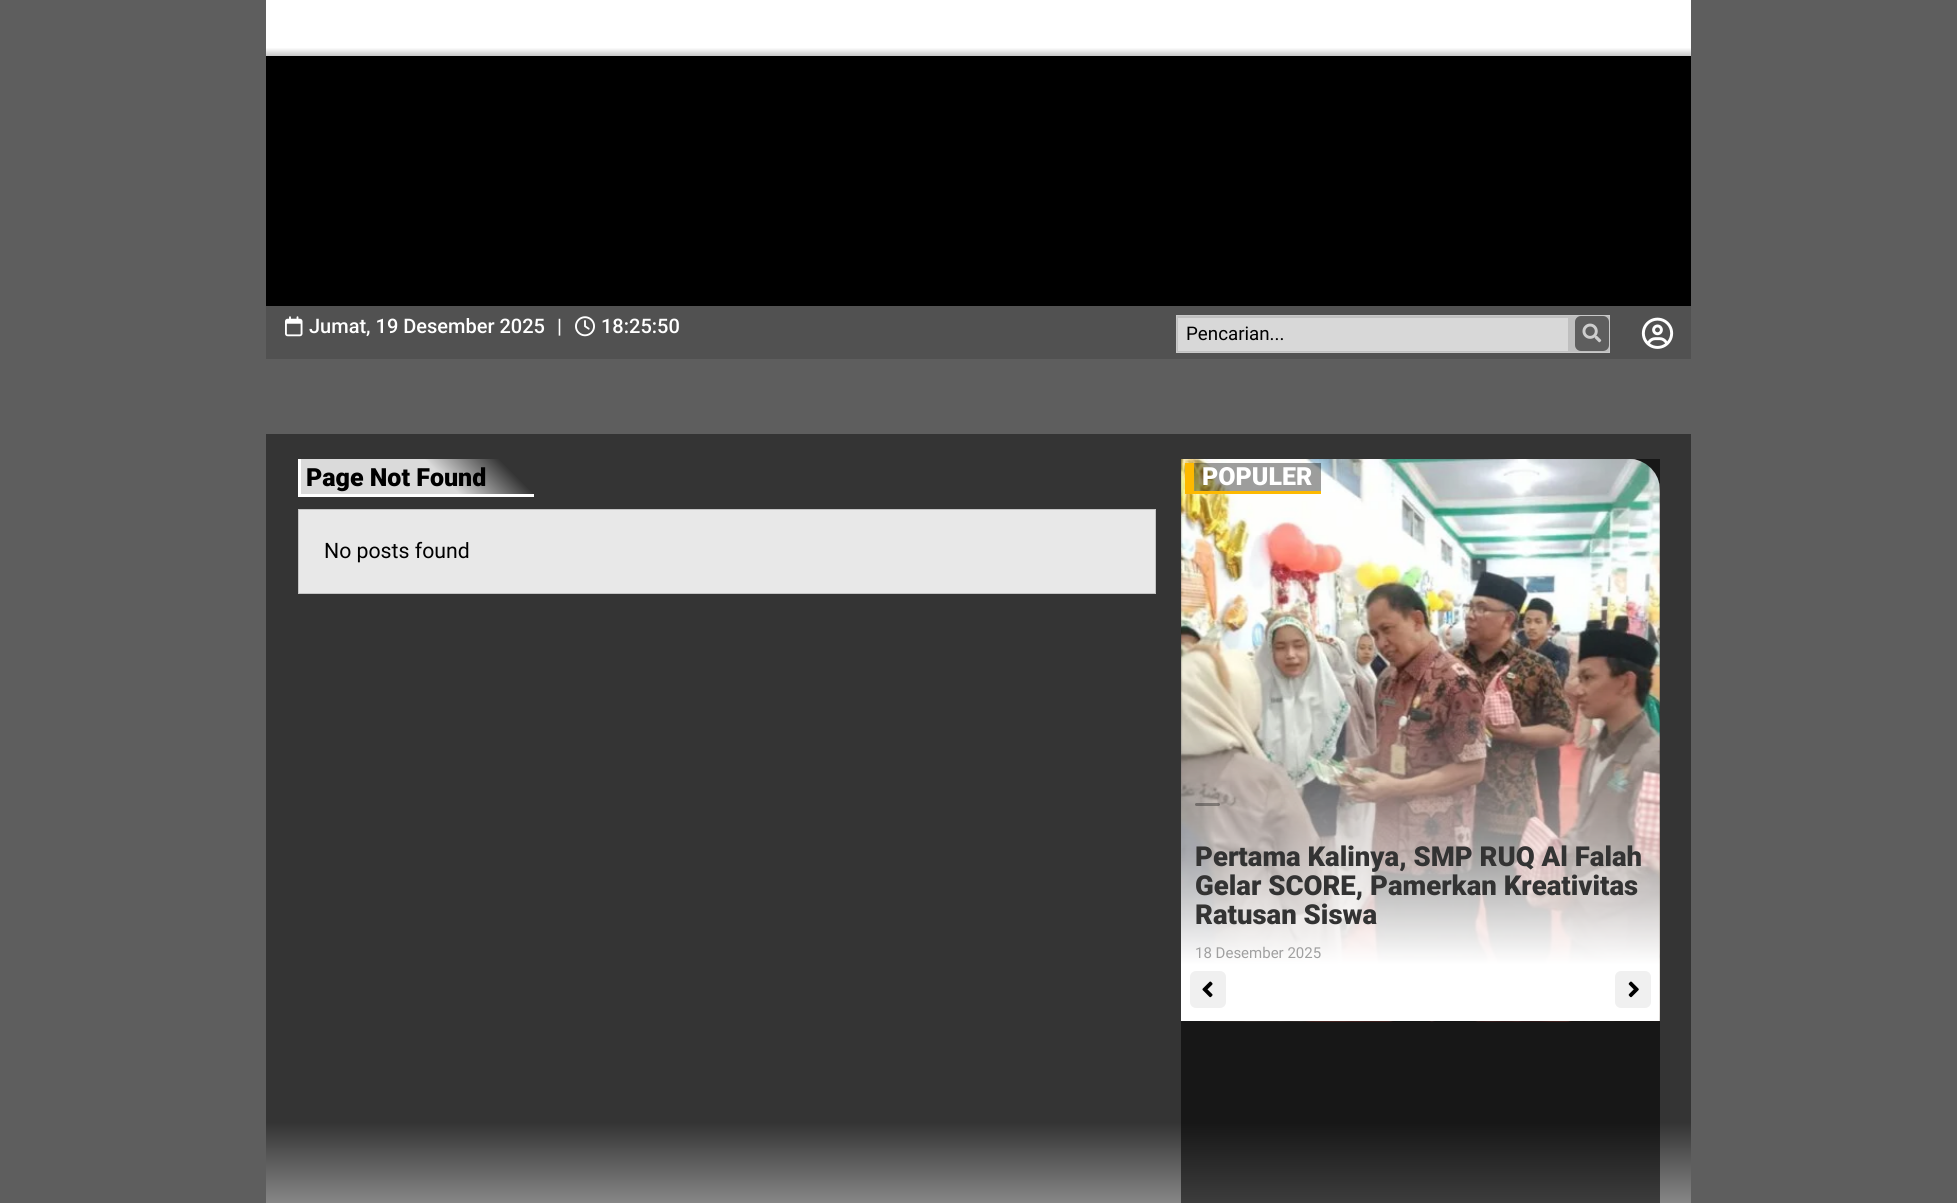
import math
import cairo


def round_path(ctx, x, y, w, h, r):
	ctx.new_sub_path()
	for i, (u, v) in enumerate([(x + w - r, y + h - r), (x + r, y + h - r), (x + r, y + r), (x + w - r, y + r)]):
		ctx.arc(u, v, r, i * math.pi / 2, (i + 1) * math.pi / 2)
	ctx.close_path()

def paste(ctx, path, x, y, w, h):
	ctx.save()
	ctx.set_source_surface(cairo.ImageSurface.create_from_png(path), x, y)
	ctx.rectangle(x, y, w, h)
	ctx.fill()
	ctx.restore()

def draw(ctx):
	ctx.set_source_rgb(0.369, 0.369, 0.369)
	ctx.paint()
	ctx.set_source_rgb(0, 0, 0)
	ctx.rectangle(266, 56, 1425, 250)
	ctx.fill()
	gradient = cairo.LinearGradient(979, 0, 979, 56)
	gradient.add_color_stop_rgba(0.85, 1, 1, 1, 1)
	gradient.add_color_stop_rgba(1, 0.78, 0.78, 0.78, 1)
	ctx.set_source(gradient)
	ctx.rectangle(266, 0, 1425, 56)
	ctx.fill()
	ctx.set_source_rgb(0.318, 0.318, 0.318)
	ctx.rectangle(266, 306, 1425, 53)
	ctx.fill()
	paste(ctx, 'media/1.png', 285, 316, 18, 21)
	ctx.select_font_face('Roboto Medium')
	ctx.set_font_size(20)
	ctx.set_source_rgb(1, 1, 1)
	ctx.move_to(309, 333)
	ctx.show_text('Jumat, 19 Desember 2025')
	ctx.move_to(557, 333)
	ctx.show_text('|')
	paste(ctx, 'media/2.png', 575, 316, 20, 21)
	ctx.move_to(601, 333)
	ctx.show_text('18:25:50')
	ctx.set_source_rgb(0.749, 0.749, 0.749)
	ctx.rectangle(1176.5, 315.5, 433, 37)
	ctx.fill_preserve()
	ctx.set_source_rgb(0.788, 0.788, 0.788)
	ctx.set_line_width(1)
	ctx.stroke()
	ctx.set_source_rgb(0.847, 0.847, 0.847)
	ctx.rectangle(1178, 318, 390, 33)
	ctx.fill()
	ctx.select_font_face('Roboto')
	ctx.set_font_size(18.75)
	ctx.set_source_rgb(0, 0, 0)
	ctx.move_to(1186, 340)
	ctx.show_text('Pencarian...')
	ctx.set_source_rgb(0.369, 0.369, 0.369)
	round_path(ctx, 1575, 316, 34, 35, 6)
	ctx.fill()
	paste(ctx, 'media/3.png', 1582, 323, 20, 20)
	paste(ctx, 'media/4.png', 1641, 317, 33, 32)
	gradient = cairo.LinearGradient(979, 434, 979, 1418)
	gradient.add_color_stop_rgba(0.7, 0.204, 0.204, 0.204, 1)
	gradient.add_color_stop_rgba(0.9, 1, 1, 1, 1)
	ctx.set_source(gradient)
	ctx.rectangle(266, 434, 1425, 769)
	ctx.fill()
	gradient = cairo.LinearGradient(979, 434, 979, 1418)
	gradient.add_color_stop_rgba(0.7, 0.09, 0.09, 0.09, 1)
	gradient.add_color_stop_rgba(0.9, 0.451, 0.451, 0.451, 1)
	ctx.set_source(gradient)
	ctx.rectangle(1181, 459, 479, 744)
	ctx.fill()
	gradient = cairo.LinearGradient(350, 543, 484, 409)
	gradient.add_color_stop_rgba(0.59, 0.855, 0.855, 0.855, 1)
	gradient.add_color_stop_rgba(0.87, 0.204, 0.204, 0.204, 1)
	ctx.set_source(gradient)
	ctx.rectangle(301, 459, 232, 35)
	ctx.fill()
	ctx.set_source_rgb(1, 1, 1)
	ctx.rectangle(298, 494, 236, 3)
	ctx.fill()
	ctx.rectangle(298, 459, 3, 37)
	ctx.fill()
	ctx.select_font_face('Roboto Black')
	ctx.set_font_size(25)
	ctx.set_source_rgb(0, 0, 0)
	ctx.move_to(306, 486)
	ctx.show_text('Page Not Found')
	ctx.set_source_rgb(0.91, 0.91, 0.91)
	ctx.rectangle(298.5, 509.5, 857, 84)
	ctx.fill_preserve()
	ctx.set_source_rgb(0.769, 0.769, 0.769)
	ctx.stroke()
	ctx.select_font_face('Roboto')
	ctx.set_font_size(21.25)
	ctx.set_source_rgb(0, 0, 0)
	ctx.move_to(324, 558)
	ctx.show_text('No posts found')
	paste(ctx, 'media/5.png', 1181, 459, 479, 563)
	ctx.set_source_rgba(0, 0, 0, 0.38)
	ctx.rectangle(1194, 463, 127, 28)
	ctx.fill()
	ctx.set_source_rgb(0.992, 0.725, 0)
	ctx.rectangle(1194, 491, 127, 3)
	ctx.rectangle(1185, 463, 9, 31)
	ctx.fill()
	ctx.select_font_face('Roboto Black')
	ctx.set_font_size(25)
	ctx.set_source_rgb(1, 1, 1)
	ctx.move_to(1202, 485)
	ctx.show_text('POPULER')
	gradient = cairo.LinearGradient(1421, 459, 1421, 1021)
	gradient.add_color_stop_rgba(0.4, 1, 1, 1, 0)
	gradient.add_color_stop_rgba(0.9, 1, 1, 1, 1)
	ctx.set_source(gradient)
	ctx.rectangle(1181, 690, 479, 331)
	ctx.fill()
	ctx.set_source_rgba(0, 0, 0, 0.33)
	round_path(ctx, 1195, 803, 25, 3, 1.5)
	ctx.fill()
	ctx.set_font_size(27.5)
	ctx.set_source_rgb(0.2, 0.2, 0.2)
	for x, y, s in [
		(1195, 866, 'Pertama Kalinya, SMP RUQ Al Falah'),
		(1195, 895, 'Gelar SCORE, Pamerkan Kreativitas'),
		(1195, 924, 'Ratusan Siswa'),
	]:
		ctx.move_to(x, y)
		ctx.show_text(s)
	ctx.select_font_face('Roboto')
	ctx.set_font_size(15)
	ctx.set_source_rgb(0.627, 0.627, 0.627)
	ctx.move_to(1195, 958)
	ctx.show_text('18 Desember 2025')
	paste(ctx, 'media/6.png', 1659, 484, 1, 537)
	ctx.set_source_rgb(0.941, 0.941, 0.941)
	round_path(ctx, 1190, 971, 36, 37, 6)
	ctx.fill()
	paste(ctx, 'media/7.png', 1202, 981, 11, 17)
	round_path(ctx, 1615, 971, 36, 37, 6)
	ctx.fill()
	paste(ctx, 'media/8.png', 1628, 981, 11, 17)


surface = cairo.ImageSurface(cairo.FORMAT_RGB24, 1957, 1203)
ctx = cairo.Context(surface)
options = cairo.FontOptions()
options.set_hint_metrics(cairo.HINT_METRICS_OFF)
options.set_hint_style(cairo.HINT_STYLE_NONE)
ctx.set_font_options(options)
ctx.set_miter_limit(4)
draw(ctx)
surface.write_to_png('image.png')
